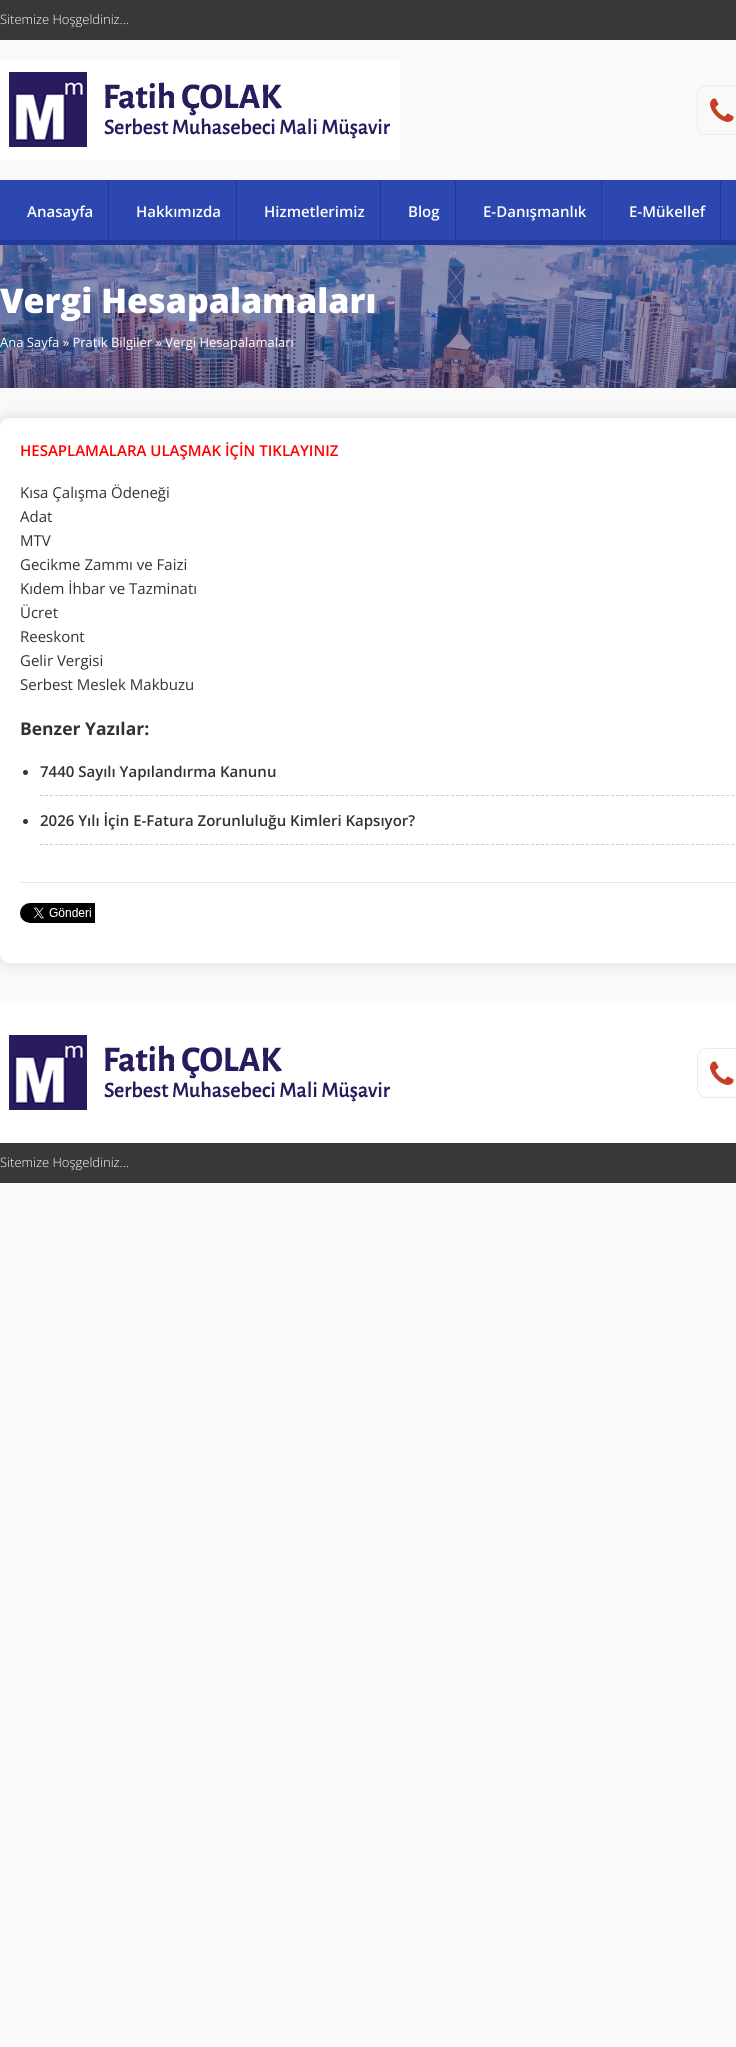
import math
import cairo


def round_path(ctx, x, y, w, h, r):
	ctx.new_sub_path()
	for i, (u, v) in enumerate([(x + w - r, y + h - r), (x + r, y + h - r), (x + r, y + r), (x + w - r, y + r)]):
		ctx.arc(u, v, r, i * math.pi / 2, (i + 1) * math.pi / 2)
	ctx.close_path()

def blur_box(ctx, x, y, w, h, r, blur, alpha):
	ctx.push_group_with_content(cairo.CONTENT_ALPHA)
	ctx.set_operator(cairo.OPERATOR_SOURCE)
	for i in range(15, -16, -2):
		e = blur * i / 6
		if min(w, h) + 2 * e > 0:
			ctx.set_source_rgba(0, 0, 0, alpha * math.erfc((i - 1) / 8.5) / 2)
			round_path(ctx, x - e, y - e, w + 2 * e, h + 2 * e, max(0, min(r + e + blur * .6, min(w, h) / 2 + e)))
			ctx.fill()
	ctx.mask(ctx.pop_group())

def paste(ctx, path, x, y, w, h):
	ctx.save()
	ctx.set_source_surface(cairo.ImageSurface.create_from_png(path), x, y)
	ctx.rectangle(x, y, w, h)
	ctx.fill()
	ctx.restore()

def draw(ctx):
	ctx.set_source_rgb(0.973, 0.973, 0.973)
	ctx.paint()
	ctx.set_source_rgb(0.22, 0.22, 0.22)
	ctx.rectangle(0, 0, 736, 40)
	ctx.fill()
	ctx.select_font_face('Open Sans Light')
	ctx.set_font_size(13)
	ctx.set_source_rgb(1, 1, 1)
	ctx.move_to(0, 24)
	ctx.show_text('Sitemize Hoşgeldiniz...')
	paste(ctx, 'media/1.png', 0, 60, 400, 100)
	round_path(ctx, 697.5, 85.5, 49, 49, 9.5)
	ctx.set_source_rgb(0.922, 0.922, 0.922)
	ctx.set_line_width(1)
	ctx.stroke()
	paste(ctx, 'media/2.png', 710, 98, 24, 24)
	ctx.set_source_rgb(0.173, 0.278, 0.69)
	ctx.rectangle(0, 180, 736, 60)
	ctx.fill()
	ctx.set_source_rgb(0.125, 0.224, 0.608)
	ctx.rectangle(0, 240, 736, 5)
	ctx.rectangle(108, 180, 1, 60)
	ctx.fill()
	ctx.select_font_face('Open Sans SemiBold')
	ctx.set_font_size(15)
	ctx.set_source_rgb(1, 1, 1)
	ctx.move_to(27, 217)
	ctx.show_text('Anasayfa')
	ctx.set_source_rgb(0.125, 0.224, 0.608)
	ctx.rectangle(236, 180, 1, 60)
	ctx.fill()
	ctx.set_source_rgb(1, 1, 1)
	ctx.move_to(136, 217)
	ctx.show_text('Hakkımızda')
	ctx.set_source_rgb(0.125, 0.224, 0.608)
	ctx.rectangle(380, 180, 1, 60)
	ctx.fill()
	ctx.set_source_rgb(1, 1, 1)
	ctx.move_to(264, 217)
	ctx.show_text('Hizmetlerimiz')
	ctx.set_source_rgb(0.125, 0.224, 0.608)
	ctx.rectangle(455, 180, 1, 60)
	ctx.fill()
	ctx.set_source_rgb(1, 1, 1)
	ctx.move_to(408, 217)
	ctx.show_text('Blog')
	ctx.set_source_rgb(0.125, 0.224, 0.608)
	ctx.rectangle(601, 180, 1, 60)
	ctx.fill()
	ctx.set_source_rgb(1, 1, 1)
	ctx.move_to(483, 217)
	ctx.show_text('E-Danışmanlık')
	ctx.set_source_rgb(0.125, 0.224, 0.608)
	ctx.rectangle(720, 180, 1, 60)
	ctx.fill()
	ctx.set_source_rgb(1, 1, 1)
	ctx.move_to(629, 217)
	ctx.show_text('E-Mükellef')
	ctx.set_source_rgb(0.173, 0.278, 0.69)
	ctx.rectangle(0, 245, 736, 143)
	ctx.fill()
	paste(ctx, 'media/3.png', 0, 245, 736, 143)
	ctx.select_font_face('Open Sans ExtraBold')
	ctx.set_font_size(34)
	ctx.set_source_rgb(1, 1, 1)
	ctx.move_to(0, 313)
	ctx.show_text('Vergi Hesapalamaları')
	ctx.select_font_face('Open Sans')
	ctx.set_font_size(13)
	ctx.move_to(0, 347)
	ctx.show_text('Ana Sayfa » Pratik Bilgiler » Vergi Hesapalamaları')
	ctx.set_source_rgb(0.729, 0.729, 0.729)
	blur_box(ctx, 0, 418, 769, 545, 10, 7.5, 0.5)
	ctx.set_source_rgb(1, 1, 1)
	round_path(ctx, 0, 418, 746, 545, 10)
	ctx.fill()
	ctx.select_font_face('Open Sans SemiBold')
	ctx.set_font_size(15)
	ctx.set_source_rgb(1, 0, 0)
	ctx.move_to(20, 456)
	ctx.show_text('HESAPLAMALARA ULAŞMAK İÇİN TIKLAYINIZ')
	ctx.select_font_face('Open Sans')
	ctx.set_source_rgb(0.196, 0.196, 0.196)
	for x, y, s in [
		(20, 498, 'Kısa Çalışma Ödeneği'),
		(20, 522, 'Adat'),
		(20, 546, 'MTV'),
		(20, 570, 'Gecikme Zammı ve Faizi'),
		(20, 594, 'Kıdem İhbar ve Tazminatı'),
		(20, 618, 'Ücret'),
		(20, 642, 'Reeskont'),
		(20, 666, 'Gelir Vergisi'),
		(20, 690, 'Serbest Meslek Makbuzu'),
	]:
		ctx.move_to(x, y)
		ctx.show_text(s)
	ctx.select_font_face('Open Sans', cairo.FONT_SLANT_NORMAL, cairo.FONT_WEIGHT_BOLD)
	ctx.set_font_size(17.5)
	ctx.move_to(20, 735)
	ctx.show_text('Benzer Yazılar:')
	ctx.new_path()
	ctx.move_to(40, 795.5)
	ctx.line_to(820, 795.5)
	ctx.set_source_rgb(0.8, 0.8, 0.8)
	ctx.set_dash([3, 2.01])
	ctx.stroke()
	ctx.set_source_rgb(0.196, 0.196, 0.196)
	ctx.arc(25.5, 772.5, 2.5, 0, 2 * math.pi)
	ctx.fill()
	ctx.select_font_face('Open Sans SemiBold')
	ctx.set_font_size(15)
	ctx.move_to(40, 777)
	ctx.show_text('7440 Sayılı Yapılandırma Kanunu')
	ctx.new_path()
	ctx.move_to(40, 844.5)
	ctx.line_to(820, 844.5)
	ctx.set_source_rgb(0.8, 0.8, 0.8)
	ctx.stroke()
	ctx.set_source_rgb(0.196, 0.196, 0.196)
	ctx.arc(25.5, 821.5, 2.5, 0, 2 * math.pi)
	ctx.fill()
	ctx.move_to(40, 826)
	ctx.show_text('2026 Yılı İçin E-Fatura Zorunluluğu Kimleri Kapsıyor?')
	ctx.set_source_rgb(0.902, 0.902, 0.902)
	ctx.rectangle(20, 882, 716, 1)
	ctx.fill()
	paste(ctx, 'media/4.png', 20, 903, 75, 20)
	ctx.set_source_rgb(1, 1, 1)
	ctx.rectangle(0, 1003, 736, 140)
	ctx.fill()
	paste(ctx, 'media/5.png', 9, 1035, 381, 75)
	round_path(ctx, 697.5, 1048.5, 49, 49, 9.5)
	ctx.set_source_rgb(0.922, 0.922, 0.922)
	ctx.set_dash([])
	ctx.stroke()
	paste(ctx, 'media/6.png', 710, 1061, 24, 24)
	ctx.set_source_rgb(0.22, 0.22, 0.22)
	ctx.rectangle(0, 1143, 736, 40)
	ctx.fill()
	ctx.select_font_face('Open Sans Light')
	ctx.set_font_size(13)
	ctx.set_source_rgb(1, 1, 1)
	ctx.move_to(0, 1167)
	ctx.show_text('Sitemize Hoşgeldiniz...')


surface = cairo.ImageSurface(cairo.FORMAT_RGB24, 736, 2047)
ctx = cairo.Context(surface)
options = cairo.FontOptions()
options.set_hint_metrics(cairo.HINT_METRICS_OFF)
options.set_hint_style(cairo.HINT_STYLE_NONE)
ctx.set_font_options(options)
ctx.set_miter_limit(4)
draw(ctx)
surface.write_to_png('image.png')
